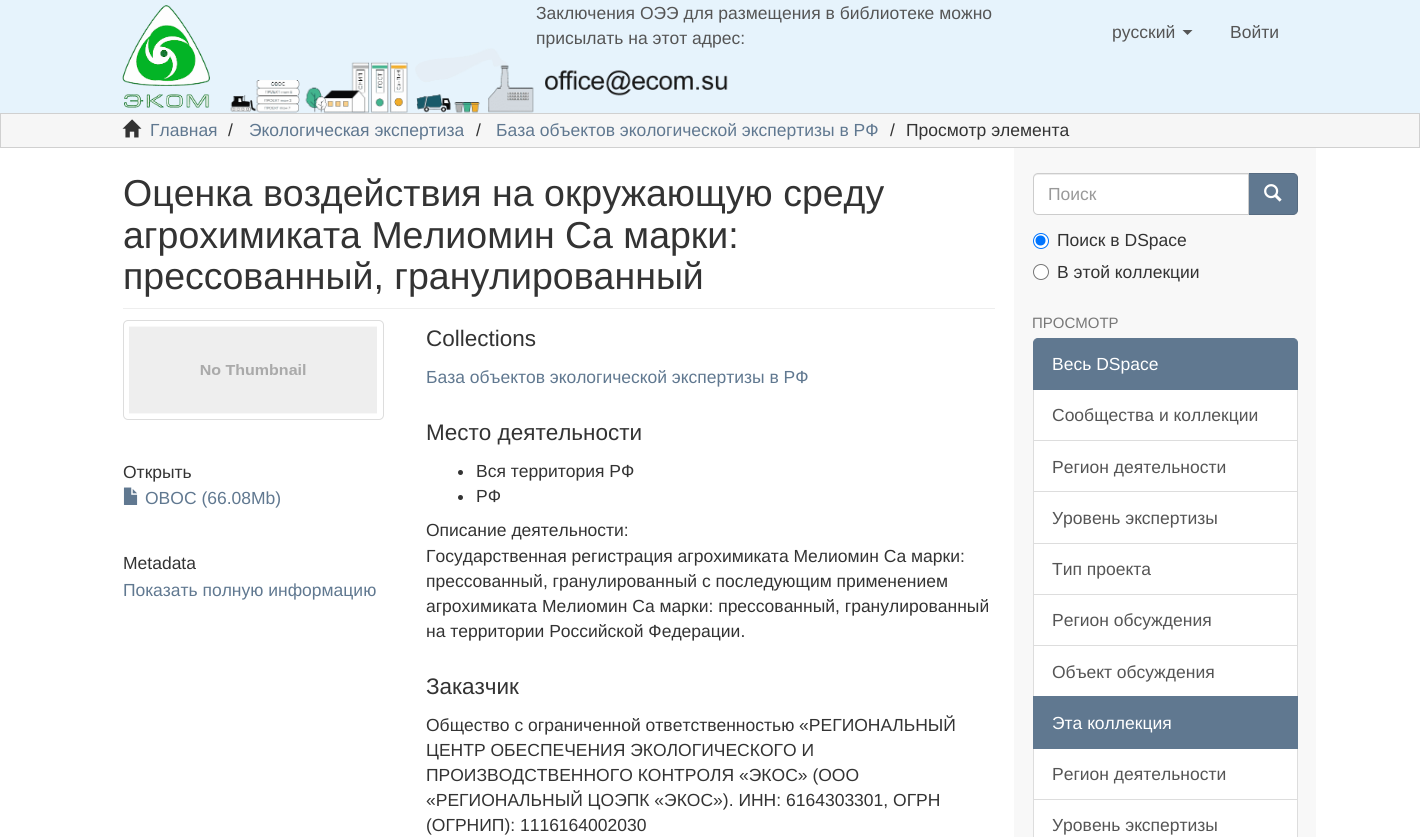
import math
import cairo


def round_path(ctx, x, y, w, h, r):
	ctx.new_sub_path()
	for i, (u, v) in enumerate([(x + w - r, y + h - r), (x + r, y + h - r), (x + r, y + r), (x + w - r, y + r)]):
		ctx.arc(u, v, r, i * math.pi / 2, (i + 1) * math.pi / 2)
	ctx.close_path()

def paste(ctx, path, x, y, w, h):
	ctx.save()
	ctx.set_source_surface(cairo.ImageSurface.create_from_png(path), x, y)
	ctx.rectangle(x, y, w, h)
	ctx.fill()
	ctx.restore()

def draw(ctx):
	ctx.set_source_rgb(1, 1, 1)
	ctx.paint()
	ctx.set_source_rgb(0.902, 0.953, 0.988)
	ctx.rectangle(0, 0, 1420, 113)
	ctx.fill()
	paste(ctx, 'media/1.png', 122, 5, 88, 103)
	ctx.select_font_face('Liberation Sans')
	ctx.set_font_size(17.5)
	ctx.set_source_rgb(0.333, 0.333, 0.333)
	ctx.move_to(536, 19)
	ctx.show_text('Заключения ОЭЭ для размещения в библиотеке можно')
	ctx.move_to(536, 44)
	ctx.show_text('присылать на этот адрес:')
	paste(ctx, 'media/2.png', 545, 70, 183, 26)
	paste(ctx, 'media/3.png', 230, 48, 304, 65)
	ctx.move_to(1112, 38)
	ctx.show_text('русский')
	ctx.new_path()
	ctx.move_to(1182.5, 30)
	ctx.line_to(1192.5, 30)
	ctx.line_to(1187.5, 35)
	ctx.close_path()
	ctx.fill()
	ctx.move_to(1230, 38)
	ctx.show_text('Войти')
	ctx.set_source_rgb(0.961, 0.961, 0.961)
	ctx.rectangle(0.5, 113.5, 1419, 34)
	ctx.fill_preserve()
	ctx.set_source_rgb(0.816, 0.816, 0.816)
	ctx.set_line_width(1)
	ctx.stroke()
	paste(ctx, 'media/4.png', 122, 119, 20, 19)
	ctx.set_source_rgb(0.376, 0.471, 0.565)
	ctx.move_to(150, 136)
	ctx.show_text('Главная')
	ctx.set_source_rgb(0.2, 0.2, 0.2)
	ctx.move_to(228, 136)
	ctx.show_text('/')
	ctx.set_source_rgb(0.376, 0.471, 0.565)
	ctx.move_to(249, 136)
	ctx.show_text('Экологическая экспертиза')
	ctx.set_source_rgb(0.2, 0.2, 0.2)
	ctx.move_to(476, 136)
	ctx.show_text('/')
	ctx.set_source_rgb(0.376, 0.471, 0.565)
	ctx.move_to(496, 136)
	ctx.show_text('База объектов экологической экспертизы в РФ')
	ctx.set_source_rgb(0.2, 0.2, 0.2)
	ctx.move_to(890, 136)
	ctx.show_text('/')
	ctx.move_to(906, 136)
	ctx.show_text('Просмотр элемента')
	ctx.set_source_rgb(0.969, 0.969, 0.969)
	ctx.rectangle(1014, 148, 302, 689)
	ctx.fill()
	ctx.set_source_rgb(0.933, 0.933, 0.933)
	ctx.rectangle(123, 308, 872, 1)
	ctx.fill()
	ctx.set_font_size(37.5)
	ctx.set_source_rgb(0.2, 0.2, 0.2)
	for x, y, s in [
		(123, 206, 'Оценка воздействия на окружающую среду'),
		(123, 248, 'агрохимиката Мелиомин Са марки:'),
		(123, 289, 'прессованный, гранулированный'),
	]:
		ctx.move_to(x, y)
		ctx.show_text(s)
	round_path(ctx, 123.5, 320.5, 260, 99, 4.5)
	ctx.set_source_rgb(0.867, 0.867, 0.867)
	ctx.stroke()
	paste(ctx, 'media/5.png', 129, 326, 248, 88)
	ctx.set_font_size(17.5)
	ctx.set_source_rgb(0.2, 0.2, 0.2)
	ctx.move_to(123, 478)
	ctx.show_text('Открыть')
	paste(ctx, 'media/6.png', 123, 487, 15, 18)
	ctx.set_source_rgb(0.376, 0.471, 0.565)
	ctx.move_to(145, 504)
	ctx.show_text('ОВОС (66.08Mb)')
	ctx.set_source_rgb(0.2, 0.2, 0.2)
	ctx.move_to(123, 569)
	ctx.show_text('Metadata')
	ctx.set_source_rgb(0.376, 0.471, 0.565)
	ctx.move_to(123, 596)
	ctx.show_text('Показать полную информацию')
	ctx.set_font_size(22.5)
	ctx.set_source_rgb(0.2, 0.2, 0.2)
	ctx.move_to(426, 346)
	ctx.show_text('Collections')
	ctx.set_font_size(17.5)
	ctx.set_source_rgb(0.376, 0.471, 0.565)
	ctx.move_to(426, 383)
	ctx.show_text('База объектов экологической экспертизы в РФ')
	ctx.set_font_size(22.5)
	ctx.set_source_rgb(0.2, 0.2, 0.2)
	ctx.move_to(426, 440)
	ctx.show_text('Место деятельности')
	ctx.new_path()
	ctx.arc(460.5, 472.5, 2.5, 0, 2 * math.pi)
	ctx.fill()
	ctx.set_font_size(17.5)
	ctx.move_to(476, 477)
	ctx.show_text('Вся территория РФ')
	ctx.new_path()
	ctx.arc(460.5, 497.5, 2.5, 0, 2 * math.pi)
	ctx.fill()
	for x, y, s in [
		(476, 502, 'РФ'),
		(426, 536, 'Описание деятельности:'),
		(426, 562, 'Государственная регистрация агрохимиката Мелиомин Са марки:'),
		(426, 587, 'прессованный, гранулированный с последующим применением'),
		(426, 612, 'агрохимиката Мелиомин Са марки: прессованный, гранулированный'),
		(426, 637, 'на территории Российской Федерации.'),
	]:
		ctx.move_to(x, y)
		ctx.show_text(s)
	ctx.set_font_size(22.5)
	ctx.move_to(426, 694)
	ctx.show_text('Заказчик')
	ctx.set_font_size(17.5)
	for x, y, s in [
		(426, 731, 'Общество с ограниченной ответственностью «РЕГИОНАЛЬНЫЙ'),
		(426, 756, 'ЦЕНТР ОБЕСПЕЧЕНИЯ ЭКОЛОГИЧЕСКОГО И'),
		(426, 781, 'ПРОИЗВОДСТВЕННОГО КОНТРОЛЯ «ЭКОС» (ООО'),
		(426, 806, '«РЕГИОНАЛЬНЫЙ ЦОЭПК «ЭКОС»). ИНН: 6164303301, ОГРН'),
		(426, 831, '(ОГРНИП): 1116164002030'),
	]:
		ctx.move_to(x, y)
		ctx.show_text(s)
	ctx.set_source_rgb(0.376, 0.471, 0.565)
	ctx.new_path()
	ctx.move_to(1248.5, 173.5)
	ctx.line_to(1293, 173.5)
	ctx.curve_to(1295.5, 173.5, 1297.5, 175.5, 1297.5, 178)
	ctx.line_to(1297.5, 210)
	ctx.curve_to(1297.5, 212.5, 1295.5, 214.5, 1293, 214.5)
	ctx.line_to(1248.5, 214.5)
	ctx.close_path()
	ctx.fill_preserve()
	ctx.set_source_rgb(0.337, 0.42, 0.506)
	ctx.stroke()
	ctx.set_source_rgb(1, 1, 1)
	ctx.new_path()
	ctx.move_to(1038, 173)
	ctx.line_to(1249, 173)
	ctx.line_to(1249, 215)
	ctx.line_to(1038, 215)
	ctx.curve_to(1035, 215, 1033, 213, 1033, 210)
	ctx.line_to(1033, 178)
	ctx.curve_to(1033, 175, 1035, 173, 1038, 173)
	ctx.close_path()
	ctx.fill()
	ctx.set_source_rgb(0.925, 0.925, 0.925)
	ctx.new_path()
	ctx.move_to(1038, 175)
	ctx.line_to(1248, 175)
	ctx.line_to(1248, 174)
	ctx.line_to(1036, 174)
	ctx.curve_to(1034, 175, 1034, 177, 1034, 179)
	ctx.curve_to(1034, 177, 1035, 175, 1038, 175)
	ctx.close_path()
	ctx.fill()
	ctx.new_path()
	ctx.move_to(1038, 173.5)
	ctx.line_to(1248.5, 173.5)
	ctx.line_to(1248.5, 214.5)
	ctx.line_to(1038, 214.5)
	ctx.curve_to(1035.5, 214.5, 1033.5, 212.5, 1033.5, 210)
	ctx.line_to(1033.5, 178)
	ctx.curve_to(1033.5, 175.5, 1035.5, 173.5, 1038, 173.5)
	ctx.close_path()
	ctx.set_source_rgb(0.8, 0.8, 0.8)
	ctx.stroke()
	ctx.set_source_rgb(0.6, 0.6, 0.6)
	ctx.move_to(1048, 200)
	ctx.show_text('Поиск')
	paste(ctx, 'media/7.png', 1264, 184, 18, 18)
	ctx.set_source_rgb(1, 1, 1)
	ctx.arc(1041, 241, 7.5, 0, 2 * math.pi)
	ctx.fill_preserve()
	ctx.set_source_rgb(0, 0.459, 1)
	ctx.stroke()
	ctx.arc(1040.5, 240.5, 5, 0, 2 * math.pi)
	ctx.fill()
	ctx.set_source_rgb(0.2, 0.2, 0.2)
	ctx.move_to(1057, 246)
	ctx.show_text('Поиск в DSpace')
	ctx.set_source_rgb(1, 1, 1)
	ctx.new_path()
	ctx.arc(1041, 272, 7.5, 0, 2 * math.pi)
	ctx.fill_preserve()
	ctx.set_source_rgb(0.463, 0.463, 0.463)
	ctx.stroke()
	ctx.set_source_rgb(0.2, 0.2, 0.2)
	ctx.move_to(1057, 278)
	ctx.show_text('В этой коллекции')
	ctx.set_font_size(15)
	ctx.set_source_rgb(0.467, 0.467, 0.467)
	ctx.move_to(1032, 328)
	ctx.show_text('ПРОСМОТР')
	ctx.set_source_rgb(1, 1, 1)
	ctx.rectangle(1033.5, 389.5, 264, 51)
	ctx.fill_preserve()
	ctx.set_source_rgb(0.867, 0.867, 0.867)
	ctx.stroke()
	ctx.set_source_rgb(0.376, 0.471, 0.565)
	ctx.new_path()
	ctx.move_to(1038, 338.5)
	ctx.line_to(1293, 338.5)
	ctx.curve_to(1295.5, 338.5, 1297.5, 340.5, 1297.5, 343)
	ctx.line_to(1297.5, 389.5)
	ctx.line_to(1033.5, 389.5)
	ctx.line_to(1033.5, 343)
	ctx.curve_to(1033.5, 340.5, 1035.5, 338.5, 1038, 338.5)
	ctx.close_path()
	ctx.fill_preserve()
	ctx.stroke()
	ctx.set_font_size(17.5)
	ctx.set_source_rgb(1, 1, 1)
	ctx.move_to(1052, 370)
	ctx.show_text('Весь DSpace')
	ctx.set_source_rgb(0.333, 0.333, 0.333)
	ctx.move_to(1052, 421)
	ctx.show_text('Сообщества и коллекции')
	ctx.set_source_rgb(1, 1, 1)
	ctx.rectangle(1034, 441, 263, 50)
	ctx.fill()
	ctx.rectangle(1033.5, 440.5, 264, 52)
	ctx.set_source_rgb(0.867, 0.867, 0.867)
	ctx.stroke()
	ctx.set_source_rgb(0.333, 0.333, 0.333)
	ctx.move_to(1052, 473)
	ctx.show_text('Регион деятельности')
	ctx.set_source_rgb(1, 1, 1)
	ctx.rectangle(1033.5, 491.5, 264, 52)
	ctx.fill_preserve()
	ctx.set_source_rgb(0.867, 0.867, 0.867)
	ctx.stroke()
	ctx.set_source_rgb(0.333, 0.333, 0.333)
	ctx.move_to(1052, 524)
	ctx.show_text('Уровень экспертизы')
	ctx.set_source_rgb(1, 1, 1)
	ctx.rectangle(1033.5, 543.5, 264, 51)
	ctx.fill_preserve()
	ctx.set_source_rgb(0.867, 0.867, 0.867)
	ctx.stroke()
	ctx.set_source_rgb(0.333, 0.333, 0.333)
	ctx.move_to(1052, 575)
	ctx.show_text('Тип проекта')
	ctx.set_source_rgb(1, 1, 1)
	ctx.rectangle(1033.5, 594.5, 264, 51)
	ctx.fill_preserve()
	ctx.set_source_rgb(0.867, 0.867, 0.867)
	ctx.stroke()
	ctx.set_source_rgb(0.333, 0.333, 0.333)
	ctx.move_to(1052, 626)
	ctx.show_text('Регион обсуждения')
	ctx.set_source_rgb(1, 1, 1)
	ctx.rectangle(1034, 646, 263, 50)
	ctx.fill()
	ctx.rectangle(1033.5, 645.5, 264, 52)
	ctx.set_source_rgb(0.867, 0.867, 0.867)
	ctx.stroke()
	ctx.set_source_rgb(0.333, 0.333, 0.333)
	ctx.move_to(1052, 678)
	ctx.show_text('Объект обсуждения')
	ctx.set_source_rgb(1, 1, 1)
	ctx.rectangle(1033.5, 748.5, 264, 51)
	ctx.fill_preserve()
	ctx.set_source_rgb(0.867, 0.867, 0.867)
	ctx.stroke()
	ctx.set_source_rgb(0.376, 0.471, 0.565)
	ctx.rectangle(1033, 696, 265, 53)
	ctx.fill()
	ctx.set_source_rgb(1, 1, 1)
	ctx.move_to(1052, 729)
	ctx.show_text('Эта коллекция')
	ctx.set_source_rgb(0.333, 0.333, 0.333)
	ctx.move_to(1052, 780)
	ctx.show_text('Регион деятельности')
	ctx.set_source_rgb(1, 1, 1)
	ctx.rectangle(1033.5, 799.5, 264, 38)
	ctx.fill_preserve()
	ctx.set_source_rgb(0.867, 0.867, 0.867)
	ctx.stroke()
	ctx.set_source_rgb(0.333, 0.333, 0.333)
	ctx.move_to(1052, 831)
	ctx.show_text('Уровень экспертизы')


surface = cairo.ImageSurface(cairo.FORMAT_RGB24, 1420, 837)
ctx = cairo.Context(surface)
options = cairo.FontOptions()
options.set_hint_metrics(cairo.HINT_METRICS_OFF)
options.set_hint_style(cairo.HINT_STYLE_NONE)
ctx.set_font_options(options)
ctx.set_miter_limit(4)
draw(ctx)
surface.write_to_png('image.png')
